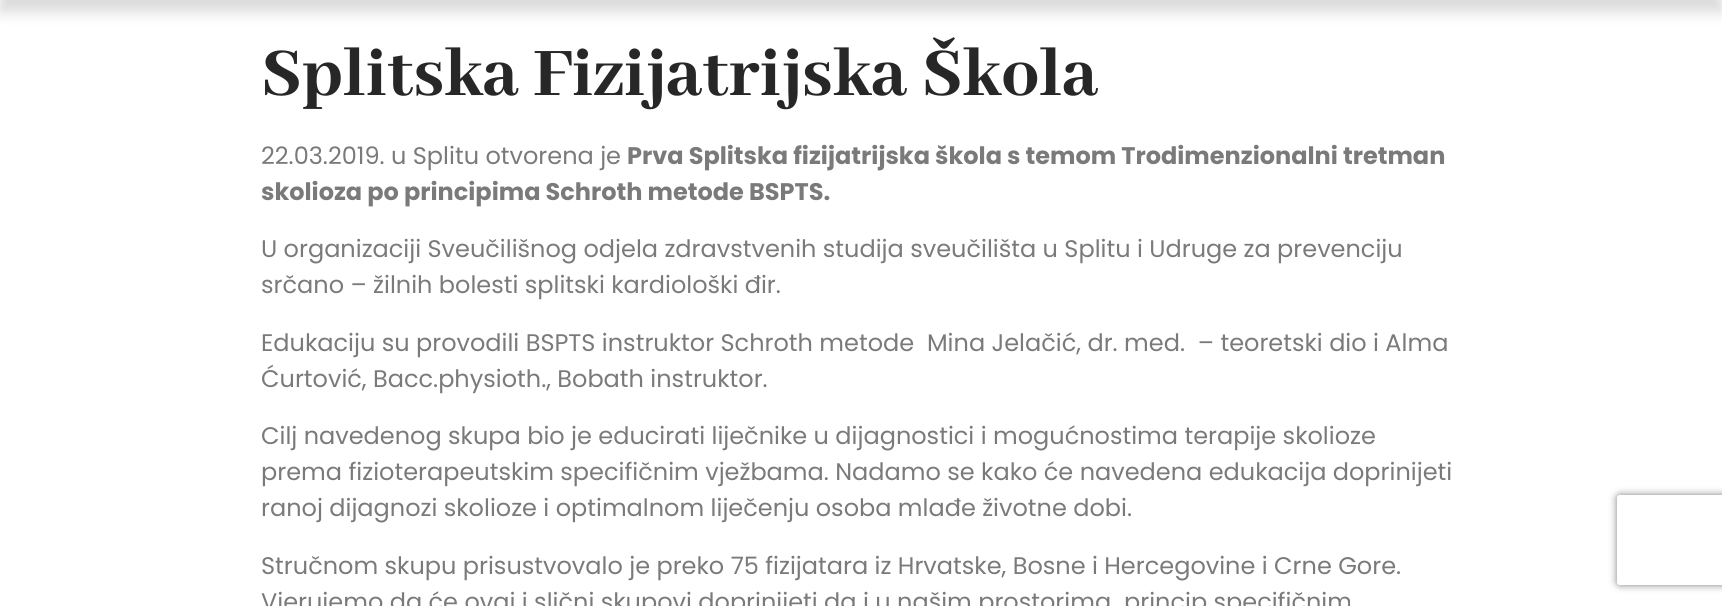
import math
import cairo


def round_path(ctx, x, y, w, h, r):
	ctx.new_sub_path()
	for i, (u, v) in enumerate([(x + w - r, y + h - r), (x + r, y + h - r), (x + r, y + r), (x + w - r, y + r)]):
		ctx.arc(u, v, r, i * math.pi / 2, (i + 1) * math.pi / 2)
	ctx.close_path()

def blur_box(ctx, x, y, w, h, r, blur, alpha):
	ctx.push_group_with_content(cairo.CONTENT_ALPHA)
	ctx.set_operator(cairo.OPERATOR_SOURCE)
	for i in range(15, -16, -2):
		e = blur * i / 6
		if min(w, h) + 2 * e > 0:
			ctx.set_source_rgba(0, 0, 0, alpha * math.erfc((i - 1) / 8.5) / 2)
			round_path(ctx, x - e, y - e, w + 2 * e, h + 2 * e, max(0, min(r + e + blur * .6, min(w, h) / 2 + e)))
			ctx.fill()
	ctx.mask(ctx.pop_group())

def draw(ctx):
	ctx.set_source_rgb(1, 1, 1)
	ctx.paint()
	ctx.set_source_rgb(0, 0, 0)
	blur_box(ctx, 0, -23, 1722, 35, 0, 7.5, 0.15)
	ctx.select_font_face('Abhaya Libre ExtraBold ExtraBold')
	ctx.set_font_size(75)
	ctx.set_source_rgb(0.153, 0.153, 0.153)
	ctx.move_to(261, 95)
	ctx.show_text('Splitska Fizijatrijska Škola')
	ctx.select_font_face('Poppins')
	ctx.set_font_size(24)
	ctx.set_source_rgb(0.478, 0.478, 0.478)
	ctx.move_to(261, 164)
	ctx.show_text('22.03.2019. u Splitu otvorena je')
	ctx.select_font_face('Poppins', cairo.FONT_SLANT_NORMAL, cairo.FONT_WEIGHT_BOLD)
	ctx.move_to(627, 164)
	ctx.show_text('Prva Splitska fizijatrijska škola s temom Trodimenzionalni tretman')
	ctx.move_to(261, 200)
	ctx.show_text('skolioza po principima Schroth metode BSPTS.')
	ctx.select_font_face('Poppins')
	for x, y, s in [
		(261, 257, 'U organizaciji Sveučilišnog odjela zdravstvenih studija sveučilišta u Splitu i Udruge za prevenciju'),
		(261, 293, 'srčano – žilnih bolesti splitski kardiološki đir.'),
		(261, 351, 'Edukaciju su provodili BSPTS instruktor Schroth metode  Mina Jelačić, dr. med.  – teoretski dio i Alma'),
		(261, 387, 'Ćurtović, Bacc.physioth., Bobath instruktor.'),
		(261, 444, 'Cilj navedenog skupa bio je educirati liječnike u dijagnostici i mogućnostima terapije skolioze'),
		(261, 480, 'prema fizioterapeutskim specifičnim vježbama. Nadamo se kako će navedena edukacija doprinijeti'),
		(261, 516, 'ranoj dijagnozi skolioze i optimalnom liječenju osoba mlađe životne dobi.'),
		(261, 574, 'Stručnom skupu prisustvovalo je preko 75 fizijatara iz Hrvatske, Bosne i Hercegovine i Crne Gore.'),
		(261, 610, 'Vjerujemo da će ovaj i slični skupovi doprinijeti da i u našim prostorima  princip specifičnim'),
	]:
		ctx.move_to(x, y)
		ctx.show_text(s)
	ctx.save()
	ctx.set_fill_rule(cairo.FILL_RULE_EVEN_ODD)
	ctx.new_path()
	ctx.move_to(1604, 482)
	ctx.line_to(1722, 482)
	ctx.line_to(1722, 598)
	ctx.line_to(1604, 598)
	ctx.close_path()
	ctx.move_to(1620, 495)
	ctx.line_to(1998, 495)
	ctx.curve_to(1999.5, 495, 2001, 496.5, 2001, 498)
	ctx.line_to(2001, 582)
	ctx.curve_to(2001, 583.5, 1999.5, 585, 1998, 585)
	ctx.line_to(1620, 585)
	ctx.curve_to(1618.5, 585, 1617, 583.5, 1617, 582)
	ctx.line_to(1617, 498)
	ctx.curve_to(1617, 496.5, 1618.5, 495, 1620, 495)
	ctx.close_path()
	ctx.clip()
	ctx.set_source_rgb(0.502, 0.502, 0.502)
	blur_box(ctx, 1617, 495, 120, 90, 3, 4, 1)
	ctx.restore()


surface = cairo.ImageSurface(cairo.FORMAT_RGB24, 1722, 606)
ctx = cairo.Context(surface)
options = cairo.FontOptions()
options.set_hint_metrics(cairo.HINT_METRICS_OFF)
options.set_hint_style(cairo.HINT_STYLE_NONE)
ctx.set_font_options(options)
ctx.set_miter_limit(4)
draw(ctx)
surface.write_to_png('image.png')
